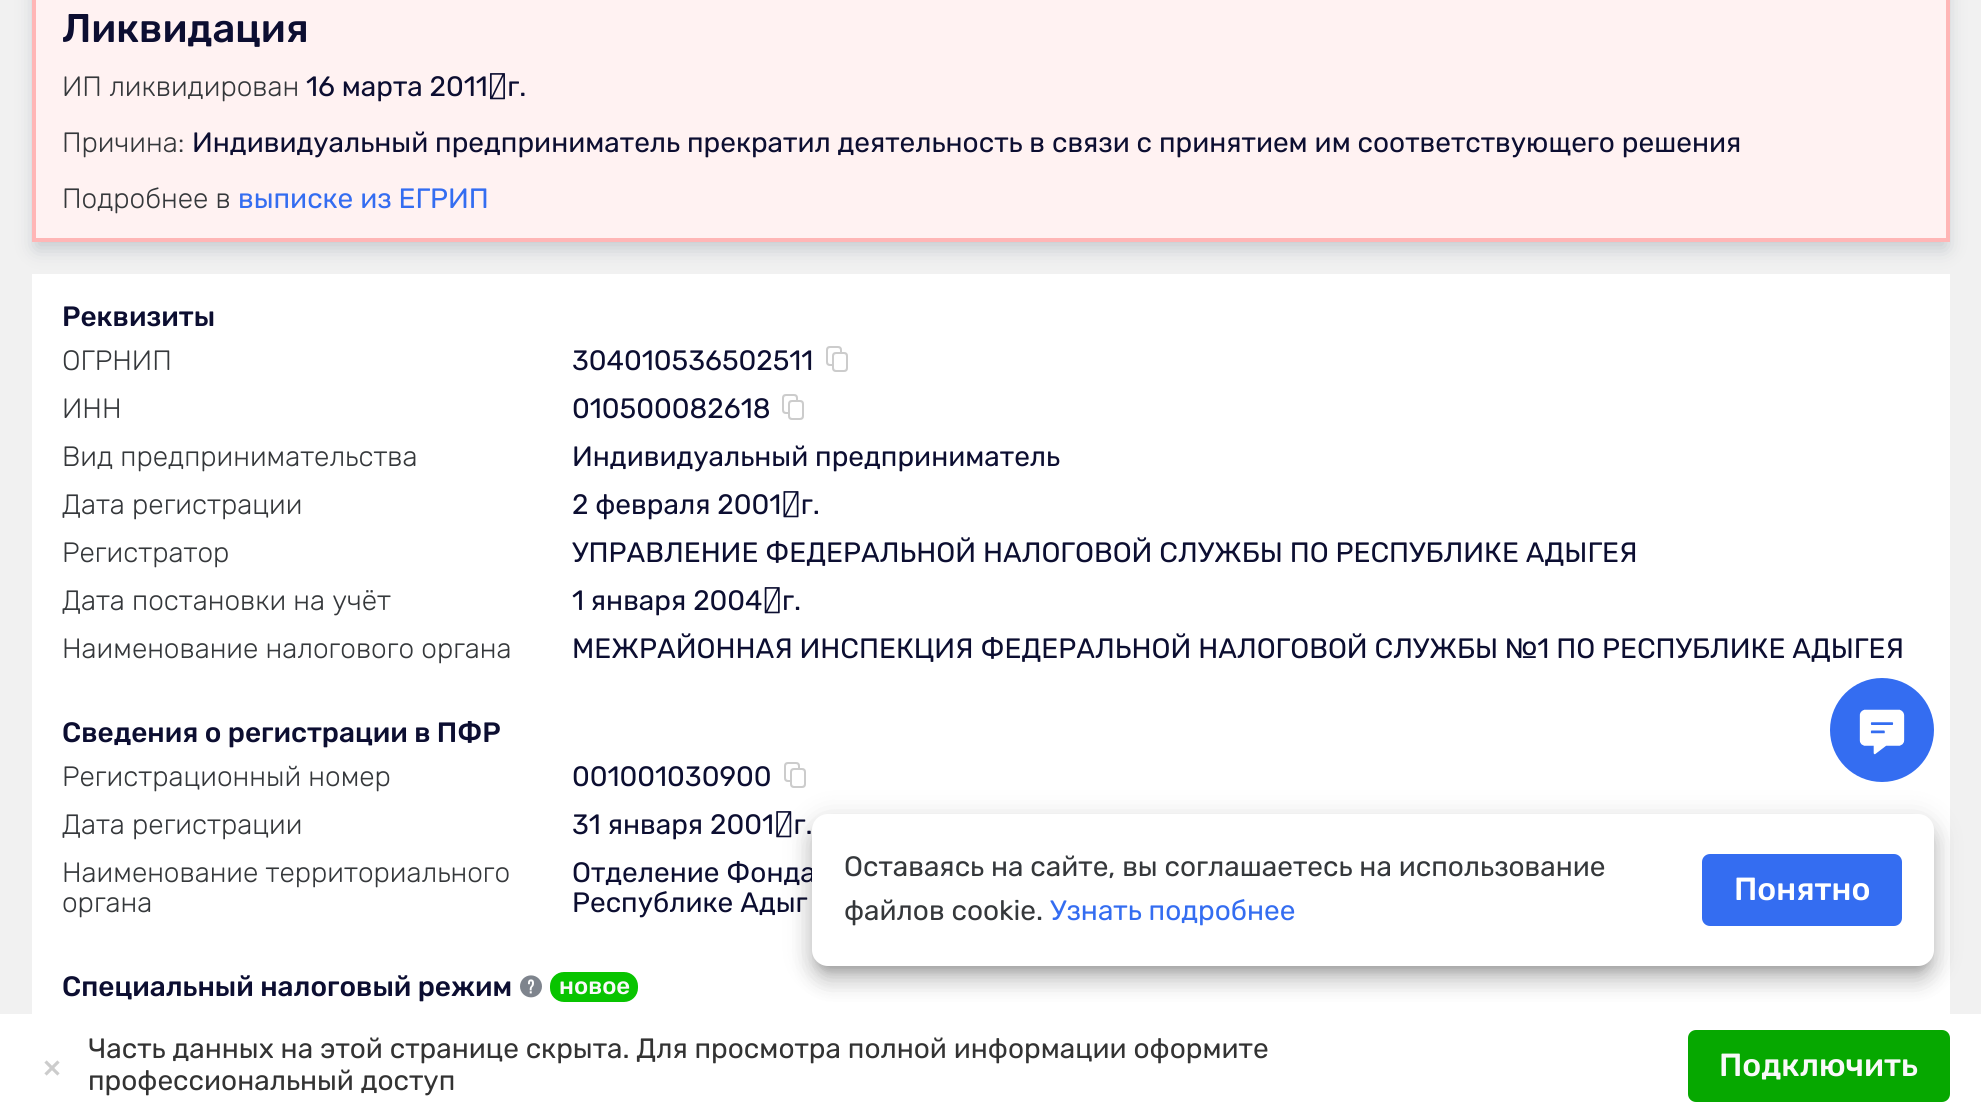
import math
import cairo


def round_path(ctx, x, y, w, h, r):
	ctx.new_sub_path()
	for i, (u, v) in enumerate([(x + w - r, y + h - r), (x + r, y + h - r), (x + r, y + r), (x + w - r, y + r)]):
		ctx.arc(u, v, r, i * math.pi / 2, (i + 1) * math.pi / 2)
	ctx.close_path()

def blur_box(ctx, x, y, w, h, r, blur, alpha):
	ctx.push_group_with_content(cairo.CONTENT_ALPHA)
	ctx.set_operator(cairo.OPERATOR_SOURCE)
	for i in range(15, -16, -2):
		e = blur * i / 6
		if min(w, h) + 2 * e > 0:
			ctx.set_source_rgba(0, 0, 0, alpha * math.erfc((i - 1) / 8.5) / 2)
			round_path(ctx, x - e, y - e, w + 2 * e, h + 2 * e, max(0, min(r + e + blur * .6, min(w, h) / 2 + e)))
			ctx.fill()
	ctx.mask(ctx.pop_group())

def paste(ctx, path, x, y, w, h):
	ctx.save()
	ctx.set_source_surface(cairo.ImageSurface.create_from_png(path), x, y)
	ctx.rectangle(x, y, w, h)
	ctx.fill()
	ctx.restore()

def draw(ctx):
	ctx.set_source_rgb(0.945, 0.945, 0.945)
	ctx.paint()
	ctx.set_source_rgb(0.188, 0.278, 0.345)
	blur_box(ctx, 36, -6, 1910, 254, 0, 10, 0.25)
	ctx.set_source_rgb(1, 0.949, 0.949)
	ctx.rectangle(36, 0, 1910, 238)
	ctx.fill()
	ctx.rectangle(34, -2, 1914, 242)
	ctx.set_source_rgb(1, 0.714, 0.714)
	ctx.set_line_width(4)
	ctx.stroke()
	ctx.select_font_face('Rubik Medium')
	ctx.set_font_size(40)
	ctx.set_source_rgb(0.047, 0.055, 0.192)
	ctx.move_to(62, 42)
	ctx.show_text('Ликвидация')
	ctx.select_font_face('Rubik Light')
	ctx.set_font_size(28)
	ctx.set_source_rgb(0.208, 0.22, 0.231)
	ctx.move_to(62, 96)
	ctx.show_text('ИП ликвидирован')
	ctx.select_font_face('Rubik')
	ctx.set_source_rgb(0.047, 0.055, 0.192)
	ctx.move_to(306, 96)
	ctx.show_text('16 марта 2011 г.')
	ctx.select_font_face('Rubik Light')
	ctx.set_source_rgb(0.208, 0.22, 0.231)
	ctx.move_to(62, 152)
	ctx.show_text('Причина:')
	ctx.select_font_face('Rubik')
	ctx.set_source_rgb(0.047, 0.055, 0.192)
	ctx.move_to(192, 152)
	ctx.show_text('Индивидуальный предприниматель прекратил деятельность в связи с принятием им соответствующего решения')
	ctx.select_font_face('Rubik Light')
	ctx.set_source_rgb(0.208, 0.22, 0.231)
	ctx.move_to(62, 208)
	ctx.show_text('Подробнее в')
	ctx.select_font_face('Rubik')
	ctx.set_source_rgb(0.204, 0.427, 0.945)
	ctx.move_to(238, 208)
	ctx.show_text('выписке из ЕГРИП')
	ctx.set_source_rgb(1, 1, 1)
	ctx.rectangle(32, 274, 1918, 740)
	ctx.fill()
	ctx.select_font_face('Rubik Medium')
	ctx.set_source_rgb(0.047, 0.055, 0.192)
	ctx.move_to(62, 326)
	ctx.show_text('Реквизиты')
	ctx.select_font_face('Rubik Light')
	ctx.set_source_rgb(0.208, 0.22, 0.231)
	ctx.move_to(62, 370)
	ctx.show_text('ОГРНИП')
	ctx.select_font_face('Rubik')
	ctx.set_source_rgb(0.047, 0.055, 0.192)
	ctx.move_to(572, 370)
	ctx.show_text('304010536502511')
	paste(ctx, 'media/1.png', 826, 346, 22, 26)
	ctx.select_font_face('Rubik Light')
	ctx.set_source_rgb(0.208, 0.22, 0.231)
	ctx.move_to(62, 418)
	ctx.show_text('ИНН')
	ctx.select_font_face('Rubik')
	ctx.set_source_rgb(0.047, 0.055, 0.192)
	ctx.move_to(572, 418)
	ctx.show_text('010500082618')
	paste(ctx, 'media/1.png', 782, 394, 22, 26)
	ctx.select_font_face('Rubik Light')
	ctx.set_source_rgb(0.208, 0.22, 0.231)
	ctx.move_to(62, 466)
	ctx.show_text('Вид предпринимательства')
	ctx.select_font_face('Rubik')
	ctx.set_source_rgb(0.047, 0.055, 0.192)
	ctx.move_to(572, 466)
	ctx.show_text('Индивидуальный предприниматель')
	ctx.select_font_face('Rubik Light')
	ctx.set_source_rgb(0.208, 0.22, 0.231)
	ctx.move_to(62, 514)
	ctx.show_text('Дата регистрации')
	ctx.select_font_face('Rubik')
	ctx.set_source_rgb(0.047, 0.055, 0.192)
	ctx.move_to(572, 514)
	ctx.show_text('2 февраля 2001 г.')
	ctx.select_font_face('Rubik Light')
	ctx.set_source_rgb(0.208, 0.22, 0.231)
	ctx.move_to(62, 562)
	ctx.show_text('Регистратор')
	ctx.select_font_face('Rubik')
	ctx.set_source_rgb(0.047, 0.055, 0.192)
	ctx.move_to(572, 562)
	ctx.show_text('УПРАВЛЕНИЕ ФЕДЕРАЛЬНОЙ НАЛОГОВОЙ СЛУЖБЫ ПО РЕСПУБЛИКЕ АДЫГЕЯ')
	ctx.select_font_face('Rubik Light')
	ctx.set_source_rgb(0.208, 0.22, 0.231)
	ctx.move_to(62, 610)
	ctx.show_text('Дата постановки на учёт')
	ctx.select_font_face('Rubik')
	ctx.set_source_rgb(0.047, 0.055, 0.192)
	ctx.move_to(572, 610)
	ctx.show_text('1 января 2004 г.')
	ctx.select_font_face('Rubik Light')
	ctx.set_source_rgb(0.208, 0.22, 0.231)
	ctx.move_to(62, 658)
	ctx.show_text('Наименование налогового органа')
	ctx.select_font_face('Rubik')
	ctx.set_source_rgb(0.047, 0.055, 0.192)
	ctx.move_to(572, 658)
	ctx.show_text('МЕЖРАЙОННАЯ ИНСПЕКЦИЯ ФЕДЕРАЛЬНОЙ НАЛОГОВОЙ СЛУЖБЫ №1 ПО РЕСПУБЛИКЕ АДЫГЕЯ')
	ctx.select_font_face('Rubik Medium')
	ctx.move_to(62, 742)
	ctx.show_text('Сведения о регистрации в ПФР')
	ctx.select_font_face('Rubik Light')
	ctx.set_source_rgb(0.208, 0.22, 0.231)
	ctx.move_to(62, 786)
	ctx.show_text('Регистрационный номер')
	ctx.select_font_face('Rubik')
	ctx.set_source_rgb(0.047, 0.055, 0.192)
	ctx.move_to(572, 786)
	ctx.show_text('001001030900')
	paste(ctx, 'media/1.png', 784, 762, 22, 26)
	ctx.select_font_face('Rubik Light')
	ctx.set_source_rgb(0.208, 0.22, 0.231)
	ctx.move_to(62, 834)
	ctx.show_text('Дата регистрации')
	ctx.select_font_face('Rubik')
	ctx.set_source_rgb(0.047, 0.055, 0.192)
	ctx.move_to(572, 834)
	ctx.show_text('31 января 2001 г.')
	ctx.select_font_face('Rubik Light')
	ctx.set_source_rgb(0.208, 0.22, 0.231)
	ctx.move_to(62, 882)
	ctx.show_text('Наименование территориального')
	ctx.move_to(62, 912)
	ctx.show_text('органа')
	ctx.select_font_face('Rubik')
	ctx.set_source_rgb(0.047, 0.055, 0.192)
	ctx.move_to(572, 882)
	ctx.show_text('Отделение Фонда')
	ctx.move_to(572, 912)
	ctx.show_text('Республике Адыг')
	ctx.select_font_face('Rubik Medium')
	ctx.move_to(62, 996)
	ctx.show_text('Специальный налоговый режим')
	paste(ctx, 'media/2.png', 520, 975, 22, 23)
	ctx.set_source_rgb(0.035, 0.769, 0)
	round_path(ctx, 550, 972, 88, 30, 14)
	ctx.fill()
	ctx.set_font_size(24)
	ctx.set_source_rgb(0.976, 0.976, 0.976)
	ctx.move_to(559, 994)
	ctx.show_text('новое')
	ctx.set_source_rgb(1, 1, 1)
	ctx.rectangle(0, 1014, 1981, 103)
	ctx.fill()
	ctx.new_path()
	ctx.move_to(58.5, 1074.5)
	ctx.line_to(52, 1068)
	ctx.move_to(45.5, 1061.5)
	ctx.line_to(52, 1068)
	ctx.move_to(52, 1068)
	ctx.line_to(58.5, 1061.5)
	ctx.move_to(52, 1068)
	ctx.line_to(45.5, 1074.5)
	ctx.set_source_rgb(0.8, 0.8, 0.8)
	ctx.set_line_width(3.2)
	ctx.stroke()
	ctx.select_font_face('Rubik')
	ctx.set_font_size(28)
	ctx.set_source_rgb(0.2, 0.2, 0.2)
	ctx.move_to(88, 1058)
	ctx.show_text('Часть данных на этой странице скрыта. Для просмотра полной информации оформите')
	ctx.move_to(88, 1090)
	ctx.show_text('профессиональный доступ')
	ctx.set_source_rgb(0.027, 0.659, 0)
	round_path(ctx, 1688, 1030, 262, 72, 8)
	ctx.fill()
	ctx.select_font_face('Rubik Medium')
	ctx.set_font_size(32)
	ctx.set_source_rgb(0.976, 0.976, 0.976)
	ctx.move_to(1719, 1076)
	ctx.show_text('Подключить')
	ctx.set_source_rgb(0, 0, 0)
	blur_box(ctx, 808, 816, 1130, 160, 20, 14, 0.12)
	ctx.set_source_rgb(0.204, 0.427, 0.945)
	ctx.arc(1882, 730, 52, 0, 2 * math.pi)
	ctx.fill()
	paste(ctx, 'media/3.png', 1859, 709, 46, 46)
	ctx.set_source_rgb(0, 0, 0)
	blur_box(ctx, 810, 828, 1126, 156, 18, 10, 0.14)
	blur_box(ctx, 818, 830, 1110, 140, 10, 5, 0.2)
	ctx.set_source_rgb(1, 1, 1)
	round_path(ctx, 812, 814, 1122, 152, 16)
	ctx.fill()
	ctx.select_font_face('Rubik')
	ctx.set_font_size(28)
	ctx.set_source_rgb(0.208, 0.22, 0.231)
	ctx.move_to(844, 876)
	ctx.show_text('Оставаясь на сайте, вы соглашаетесь на использование')
	ctx.move_to(844, 920)
	ctx.show_text('файлов cookie.')
	ctx.set_source_rgb(0.204, 0.427, 0.945)
	ctx.move_to(1050, 920)
	ctx.show_text('Узнать подробнее')
	round_path(ctx, 1702, 854, 200, 72, 8)
	ctx.fill()
	ctx.select_font_face('Rubik Medium')
	ctx.set_font_size(32)
	ctx.set_source_rgb(1, 1, 1)
	ctx.move_to(1734, 900)
	ctx.show_text('Понятно')


surface = cairo.ImageSurface(cairo.FORMAT_RGB24, 1981, 1117)
ctx = cairo.Context(surface)
options = cairo.FontOptions()
options.set_hint_metrics(cairo.HINT_METRICS_OFF)
options.set_hint_style(cairo.HINT_STYLE_NONE)
ctx.set_font_options(options)
ctx.set_miter_limit(4)
draw(ctx)
surface.write_to_png('image.png')
